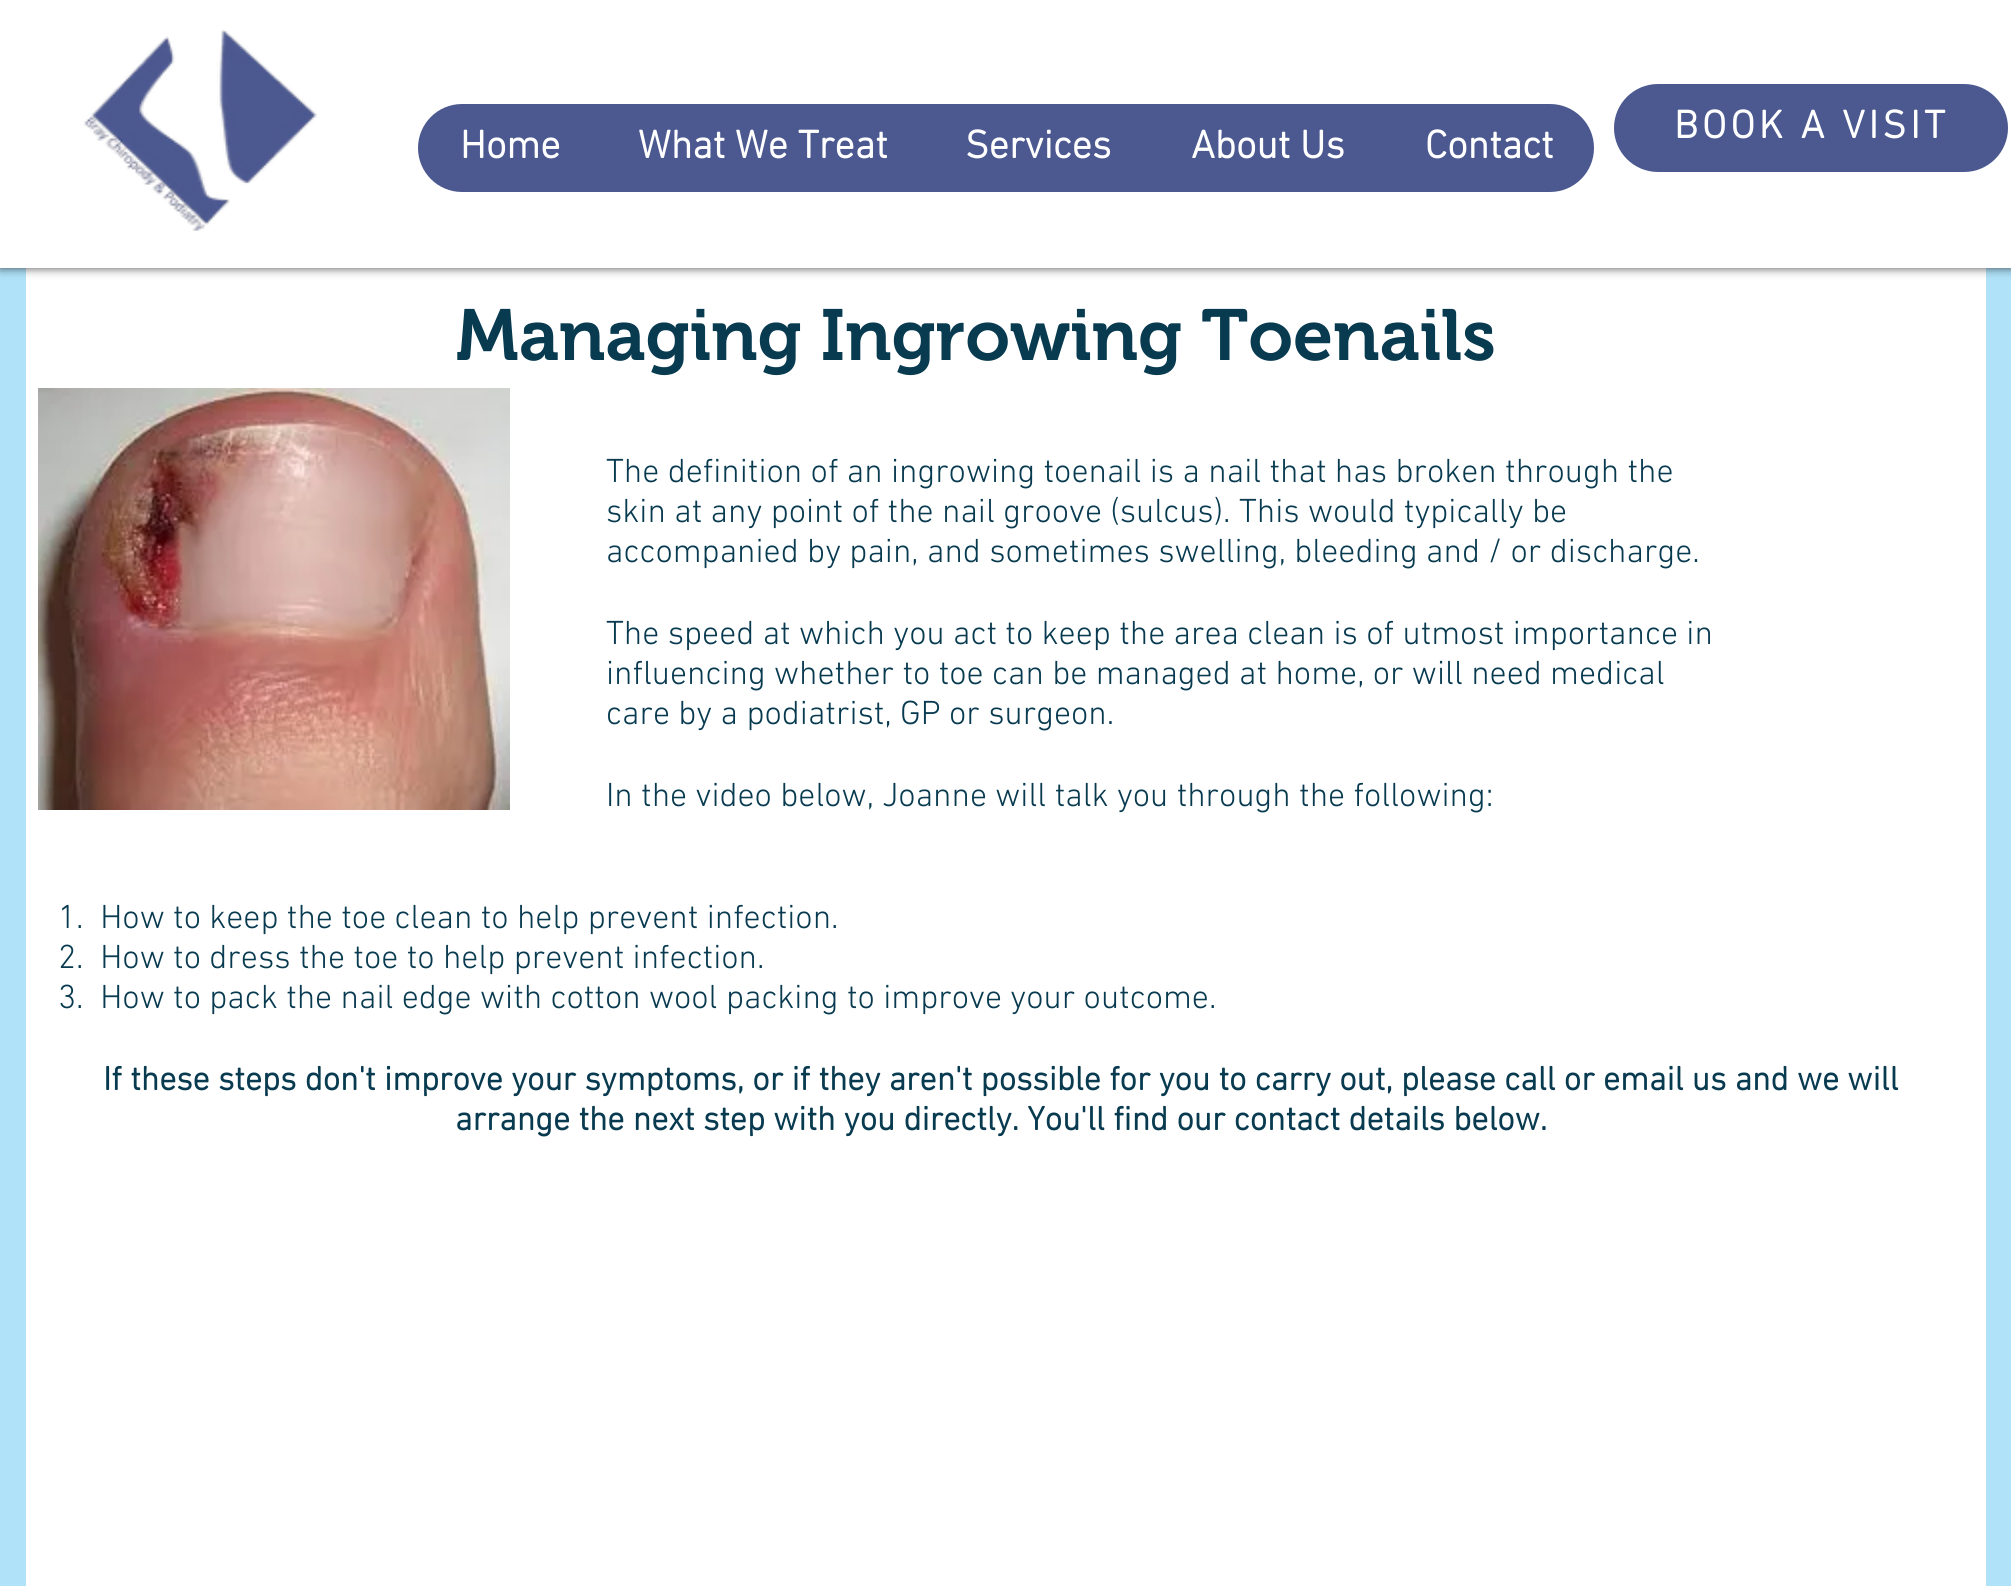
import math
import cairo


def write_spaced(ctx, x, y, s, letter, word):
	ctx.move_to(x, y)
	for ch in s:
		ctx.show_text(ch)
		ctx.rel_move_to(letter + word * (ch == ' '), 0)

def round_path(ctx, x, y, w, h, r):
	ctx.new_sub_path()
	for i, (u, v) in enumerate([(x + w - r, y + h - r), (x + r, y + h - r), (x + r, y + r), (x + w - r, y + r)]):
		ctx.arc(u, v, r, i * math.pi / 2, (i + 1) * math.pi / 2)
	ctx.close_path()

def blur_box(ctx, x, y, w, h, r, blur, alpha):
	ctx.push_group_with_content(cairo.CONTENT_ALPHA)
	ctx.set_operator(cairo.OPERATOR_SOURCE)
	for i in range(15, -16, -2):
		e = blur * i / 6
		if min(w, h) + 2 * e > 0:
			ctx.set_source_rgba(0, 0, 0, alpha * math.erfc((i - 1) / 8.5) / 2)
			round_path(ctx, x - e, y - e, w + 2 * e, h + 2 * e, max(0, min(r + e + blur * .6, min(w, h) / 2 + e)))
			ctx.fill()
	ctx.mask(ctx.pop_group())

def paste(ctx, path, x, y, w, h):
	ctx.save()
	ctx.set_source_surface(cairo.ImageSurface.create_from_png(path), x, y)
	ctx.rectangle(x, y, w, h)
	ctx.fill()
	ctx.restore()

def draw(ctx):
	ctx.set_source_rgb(0.69, 0.89, 0.98)
	ctx.paint()
	ctx.set_source_rgb(1, 1, 1)
	ctx.rectangle(26, 268, 1960, 1318)
	ctx.fill()
	ctx.set_source_rgb(0, 0, 0)
	blur_box(ctx, 0, 0, 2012, 268, 0, 5, 0.7)
	ctx.set_source_rgb(1, 1, 1)
	ctx.rectangle(0, 0, 2011, 268)
	ctx.fill()
	paste(ctx, 'media/1.png', 83, 29, 235, 202)
	ctx.set_source_rgb(0.298, 0.349, 0.565)
	round_path(ctx, 1614, 84, 394, 88, 44)
	ctx.fill()
	ctx.select_font_face('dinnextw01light', cairo.FONT_SLANT_NORMAL, cairo.FONT_WEIGHT_BOLD)
	ctx.set_font_size(40)
	ctx.set_source_rgb(1, 1, 1)
	write_spaced(ctx, 1674, 138, 'BOOK A VISIT', 4, 0)
	ctx.set_source_rgb(0.298, 0.349, 0.565)
	round_path(ctx, 418, 104, 1176, 88, 44)
	ctx.fill()
	ctx.set_source_rgb(1, 1, 1)
	for x, y, s in [
		(460, 158, 'Home'),
		(638, 158, 'What We Treat'),
		(965, 158, 'Services'),
		(1191, 158, 'About Us'),
		(1425, 158, 'Contact'),
	]:
		ctx.move_to(x, y)
		ctx.show_text(s)
	ctx.select_font_face('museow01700 SemiBold')
	ctx.set_font_size(72)
	ctx.set_source_rgb(0.035, 0.227, 0.314)
	ctx.move_to(456, 360)
	ctx.show_text('Managing Ingrowing Toenails')
	paste(ctx, 'media/2.png', 38, 388, 472, 422)
	ctx.select_font_face('dinnextw01light Light')
	ctx.set_font_size(34)
	for x, y, s in [
		(606, 482, 'The definition of an ingrowing toenail is a nail that has broken through the'),
		(606, 522, 'skin at any point of the nail groove (sulcus). This would typically be'),
		(606, 562, 'accompanied by pain, and sometimes swelling, bleeding and / or discharge.'),
		(606, 644, 'The speed at which you act to keep the area clean is of utmost importance in'),
		(606, 684, 'influencing whether to toe can be managed at home, or will need medical'),
		(606, 724, 'care by a podiatrist, GP or surgeon.'),
		(606, 806, 'In the video below, Joanne will talk you through the following:'),
		(58, 928, '1.  How to keep the toe clean to help prevent infection.'),
		(58, 968, '2.  How to dress the toe to help prevent infection.'),
		(58, 1008, '3.  How to pack the nail edge with cotton wool packing to improve your outcome.'),
	]:
		ctx.move_to(x, y)
		ctx.show_text(s)
	ctx.select_font_face('dinnextw01light', cairo.FONT_SLANT_NORMAL, cairo.FONT_WEIGHT_BOLD)
	ctx.move_to(103, 1090)
	ctx.show_text('If these steps don\'t improve your symptoms, or if they aren\'t possible for you to carry out, please call or email us and we will')
	ctx.move_to(455, 1130)
	ctx.show_text('arrange the next step with you directly. You\'ll find our contact details below.')


surface = cairo.ImageSurface(cairo.FORMAT_RGB24, 2011, 1586)
ctx = cairo.Context(surface)
options = cairo.FontOptions()
options.set_hint_metrics(cairo.HINT_METRICS_OFF)
options.set_hint_style(cairo.HINT_STYLE_NONE)
ctx.set_font_options(options)
ctx.set_miter_limit(4)
draw(ctx)
surface.write_to_png('image.png')
